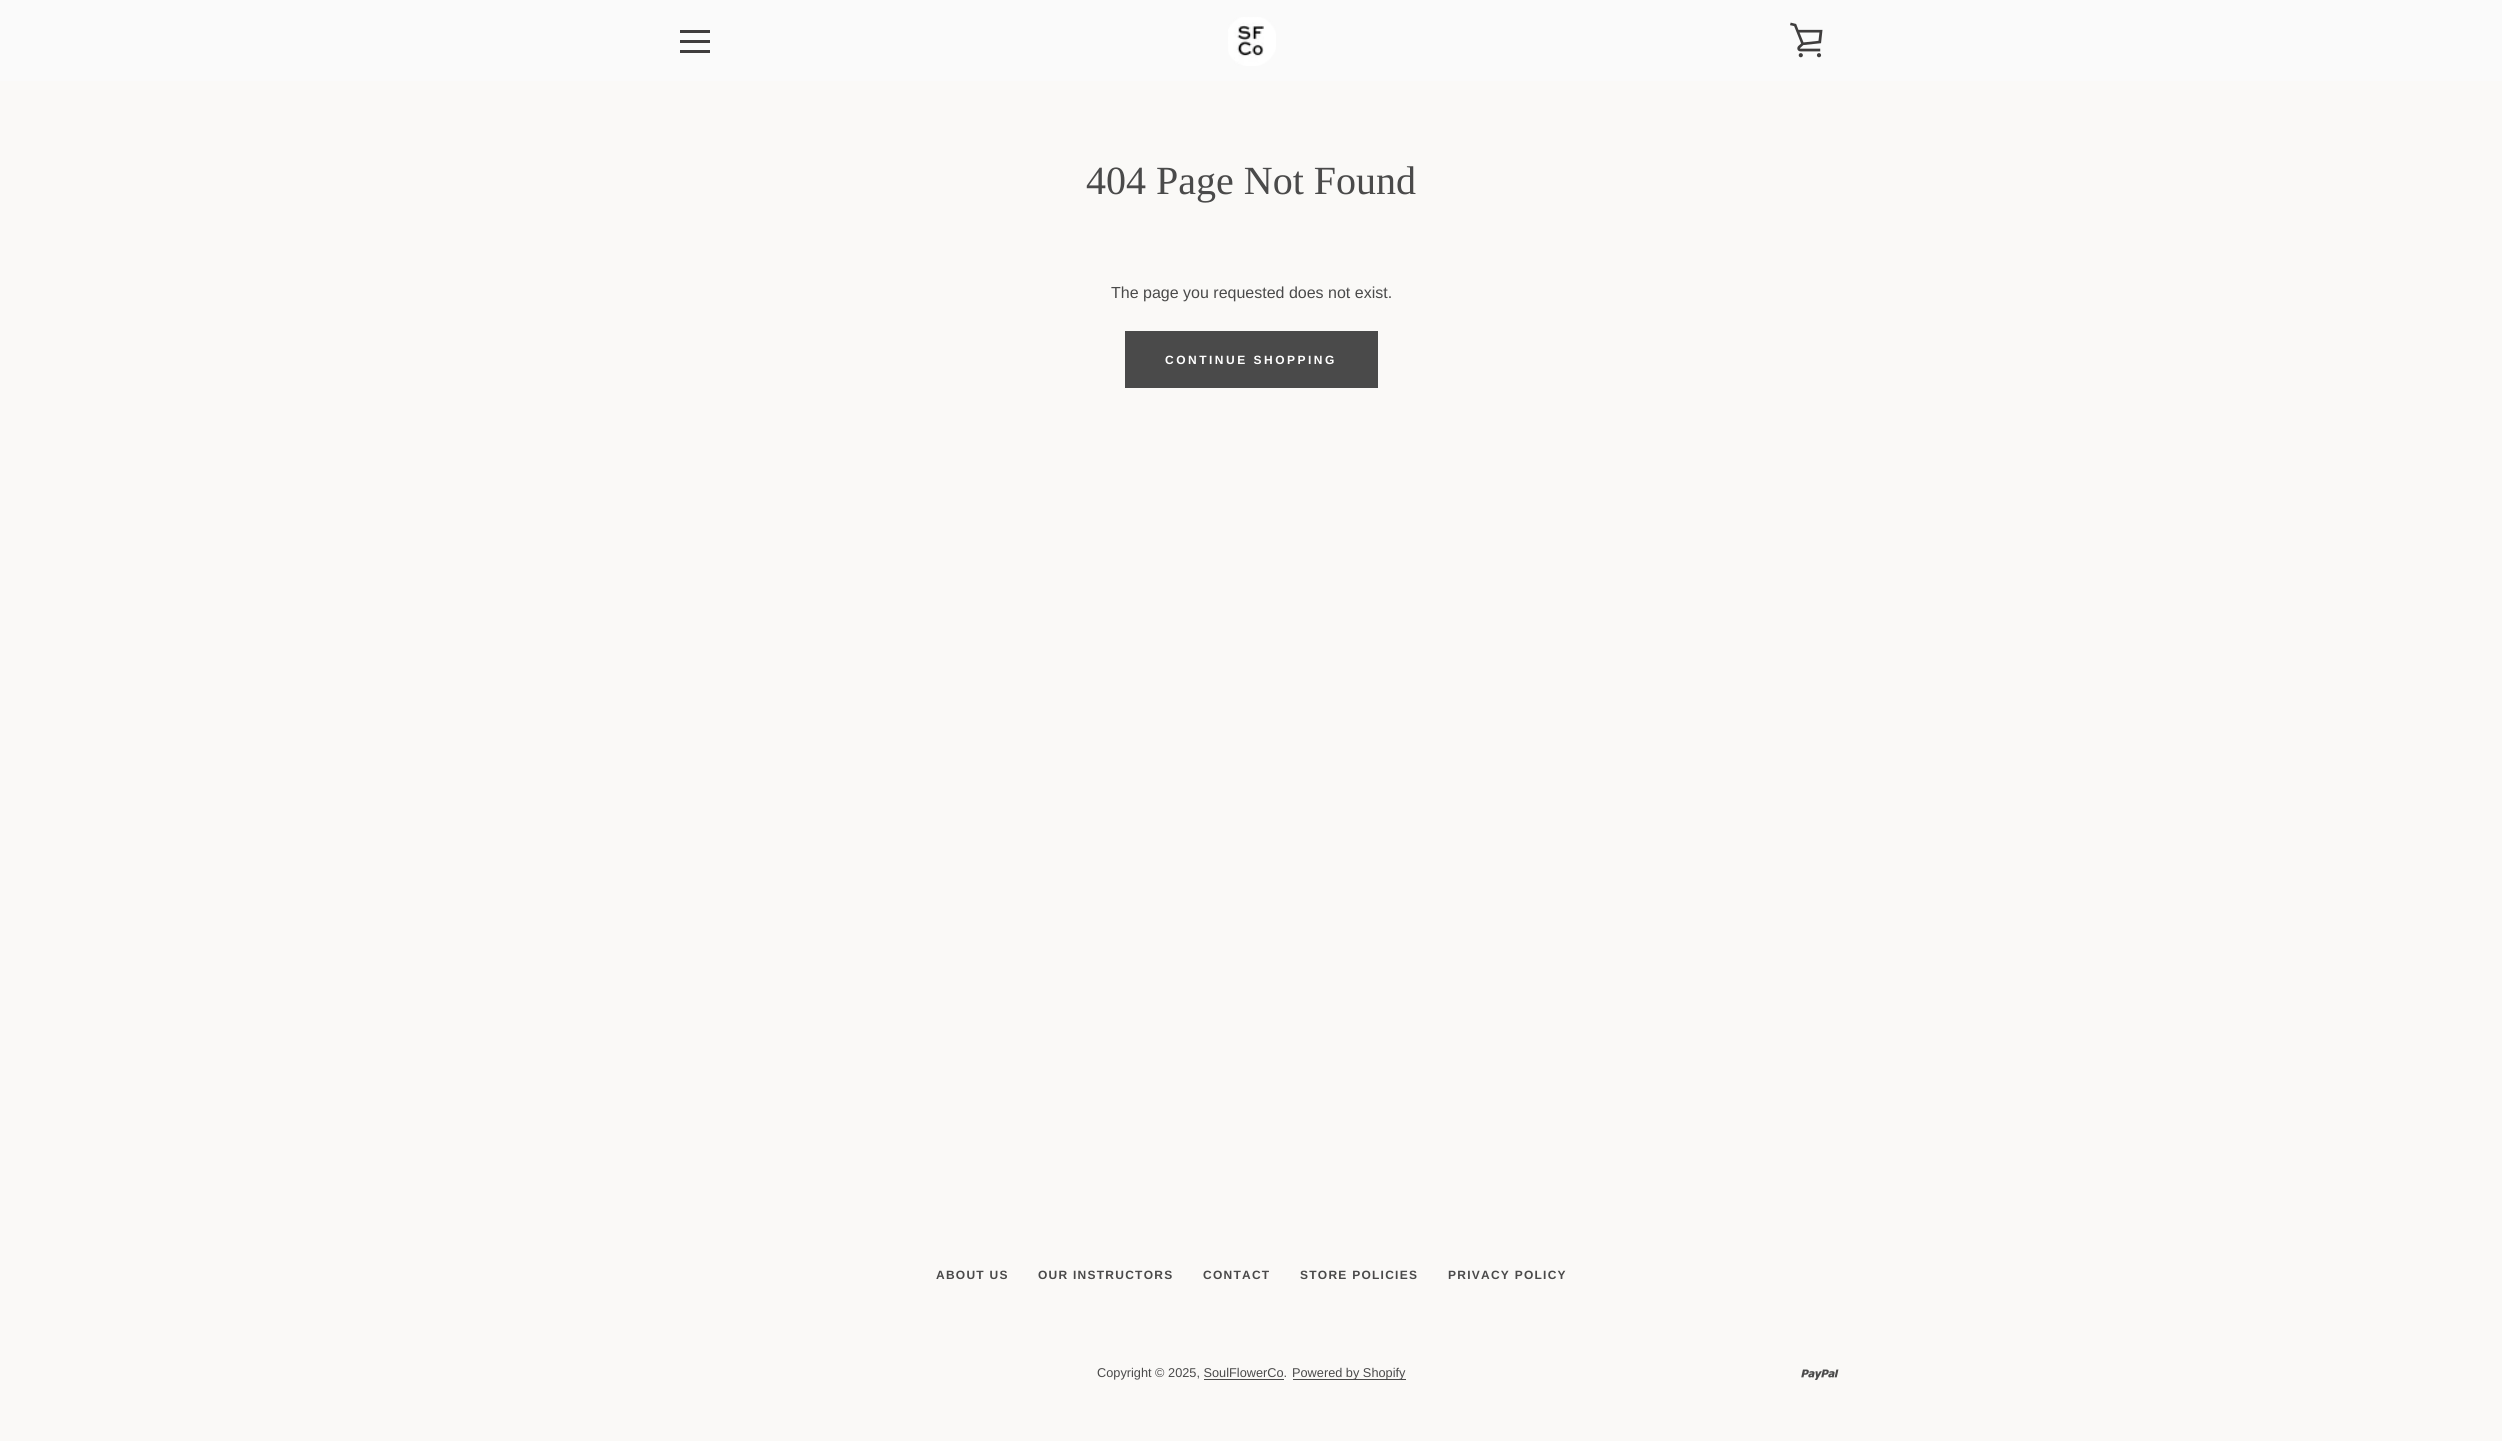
import math
import cairo


def write_spaced(ctx, x, y, s, letter, word):
	ctx.move_to(x, y)
	for ch in s:
		ctx.show_text(ch)
		ctx.rel_move_to(letter + word * (ch == ' '), 0)

def paste(ctx, path, x, y, w, h):
	ctx.save()
	ctx.set_source_surface(cairo.ImageSurface.create_from_png(path), x, y)
	ctx.rectangle(x, y, w, h)
	ctx.fill()
	ctx.restore()

def draw(ctx):
	ctx.set_source_rgb(0.98, 0.976, 0.965)
	ctx.paint()
	ctx.set_source_rgb(0.98, 0.98, 0.98)
	ctx.rectangle(0, 0, 2502, 81)
	ctx.fill()
	ctx.set_source_rgb(0.247, 0.239, 0.239)
	ctx.rectangle(680, 30, 30, 3)
	ctx.rectangle(680, 40, 30, 3)
	ctx.rectangle(680, 50, 30, 3)
	ctx.fill()
	paste(ctx, 'media/1.png', 1228, 17, 48, 49)
	paste(ctx, 'media/2.png', 1790, 22, 33, 36)
	ctx.select_font_face('Liberation Serif')
	ctx.set_font_size(40)
	ctx.set_source_rgb(0.29, 0.29, 0.29)
	ctx.move_to(1086, 194)
	ctx.show_text('404 Page Not Found')
	ctx.select_font_face('Liberation Sans')
	ctx.set_font_size(16)
	ctx.move_to(1111, 298)
	ctx.show_text('The page you requested does not exist.')
	ctx.rectangle(1125, 331, 253, 57)
	ctx.fill()
	ctx.select_font_face('Liberation Sans', cairo.FONT_SLANT_NORMAL, cairo.FONT_WEIGHT_BOLD)
	ctx.set_font_size(12)
	ctx.set_source_rgb(1, 1, 1)
	write_spaced(ctx, 1165, 364, 'CONTINUE SHOPPING', 2.5, 0)
	ctx.set_source_rgb(0.29, 0.29, 0.29)
	for x, y, s in [
		(936, 1279, 'ABOUT US'),
		(1038, 1279, 'OUR INSTRUCTORS'),
		(1203, 1279, 'CONTACT'),
		(1300, 1279, 'STORE POLICIES'),
		(1448, 1279, 'PRIVACY POLICY'),
	]:
		write_spaced(ctx, x, y, s, 1.25, 0)
	ctx.select_font_face('Liberation Sans')
	ctx.set_font_size(12.75)
	ctx.move_to(1097, 1377)
	ctx.show_text('Copyright © 2025, SoulFlowerCo.')
	ctx.rectangle(1204, 1379, 80, 1)
	ctx.fill()
	ctx.rectangle(1293, 1379, 113, 1)
	ctx.fill()
	ctx.move_to(1292, 1377)
	ctx.show_text('Powered by Shopify')
	paste(ctx, 'media/3.png', 1801, 1369, 38, 11)


surface = cairo.ImageSurface(cairo.FORMAT_RGB24, 2502, 1441)
ctx = cairo.Context(surface)
options = cairo.FontOptions()
options.set_hint_metrics(cairo.HINT_METRICS_OFF)
options.set_hint_style(cairo.HINT_STYLE_NONE)
ctx.set_font_options(options)
ctx.set_miter_limit(4)
draw(ctx)
surface.write_to_png('image.png')
